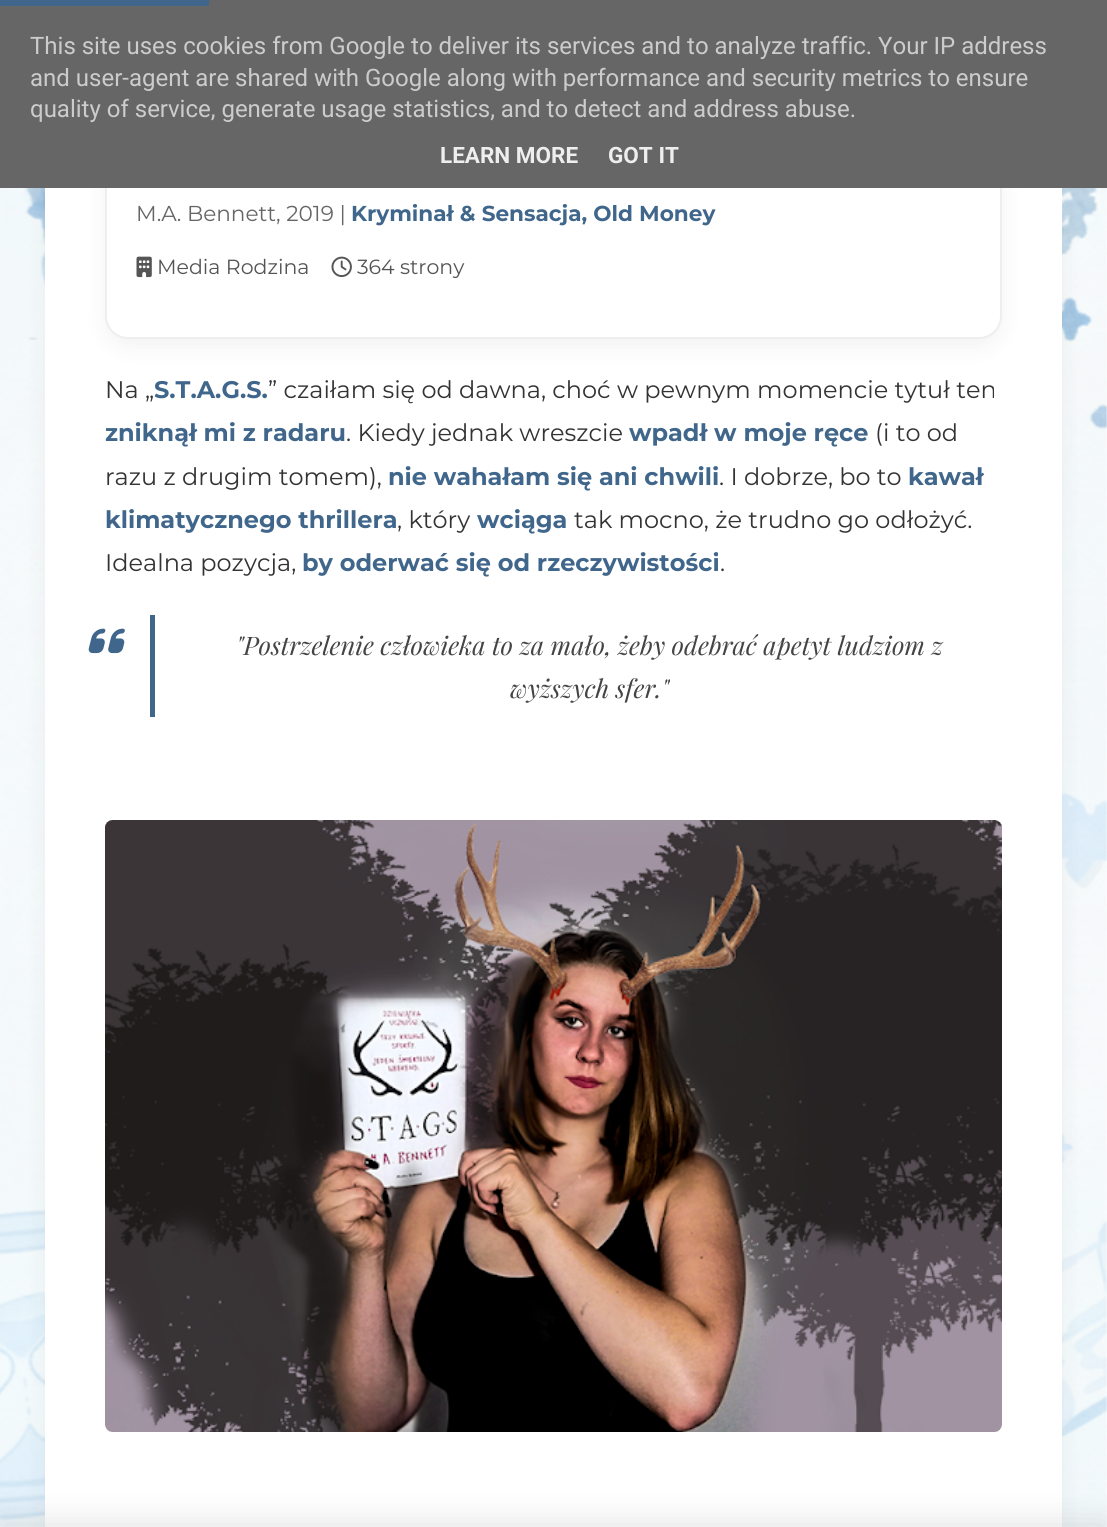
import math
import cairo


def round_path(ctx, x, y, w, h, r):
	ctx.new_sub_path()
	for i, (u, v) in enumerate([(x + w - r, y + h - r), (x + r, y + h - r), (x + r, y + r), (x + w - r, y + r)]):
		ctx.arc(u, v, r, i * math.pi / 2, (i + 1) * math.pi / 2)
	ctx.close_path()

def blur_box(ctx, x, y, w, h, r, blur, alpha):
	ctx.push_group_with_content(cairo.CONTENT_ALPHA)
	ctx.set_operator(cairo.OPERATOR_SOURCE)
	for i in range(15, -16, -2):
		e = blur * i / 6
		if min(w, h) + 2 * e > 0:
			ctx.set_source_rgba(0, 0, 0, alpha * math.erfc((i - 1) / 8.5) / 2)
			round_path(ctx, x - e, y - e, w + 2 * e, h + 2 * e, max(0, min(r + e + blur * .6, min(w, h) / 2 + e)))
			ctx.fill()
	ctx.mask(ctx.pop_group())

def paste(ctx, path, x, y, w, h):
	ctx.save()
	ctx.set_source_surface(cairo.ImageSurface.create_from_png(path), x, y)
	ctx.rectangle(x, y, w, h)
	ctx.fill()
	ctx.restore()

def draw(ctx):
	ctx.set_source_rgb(1, 1, 1)
	ctx.paint()
	paste(ctx, 'media/1.png', 0, 188, 1107, 1339)
	ctx.set_source_rgb(0, 0, 0)
	blur_box(ctx, 45, -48, 1017, 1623, 15, 11, 0.05)
	ctx.set_source_rgb(1, 1, 1)
	ctx.rectangle(45, 188, 1017, 1339)
	ctx.fill()
	ctx.set_source_rgb(0, 0, 0)
	blur_box(ctx, 105, -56, 897, 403, 23, 11, 0.05)
	ctx.set_source_rgb(1, 1, 1)
	round_path(ctx, 106, -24, 895, 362, 22)
	ctx.fill_preserve()
	ctx.set_source_rgb(0.933, 0.933, 0.933)
	ctx.stroke()
	ctx.set_source_rgb(0.4, 0.4, 0.4)
	ctx.rectangle(0, 0, 1107, 188)
	ctx.fill()
	ctx.set_source_rgb(0.251, 0.404, 0.545)
	ctx.rectangle(0, 0, 209, 6)
	ctx.fill()
	ctx.select_font_face('Roboto')
	ctx.set_font_size(24)
	ctx.set_source_rgb(0.8, 0.8, 0.8)
	for x, y, s in [
		(30, 54, 'This site uses cookies from Google to deliver its services and to analyze traffic. Your IP address'),
		(30, 86, 'and user-agent are shared with Google along with performance and security metrics to ensure'),
		(30, 117, 'quality of service, generate usage statistics, and to detect and address abuse.'),
	]:
		ctx.move_to(x, y)
		ctx.show_text(s)
	ctx.select_font_face('Roboto', cairo.FONT_SLANT_NORMAL, cairo.FONT_WEIGHT_BOLD)
	ctx.set_font_size(22.5)
	ctx.set_source_rgb(0.933, 0.933, 0.933)
	ctx.move_to(440, 163)
	ctx.show_text('LEARN MORE')
	ctx.move_to(608, 163)
	ctx.show_text('GOT IT')
	ctx.select_font_face('Montserrat')
	ctx.set_font_size(21.6)
	ctx.set_source_rgb(0.4, 0.4, 0.4)
	ctx.move_to(136, 221)
	ctx.show_text('M.A. Bennett, 2019 |')
	ctx.select_font_face('Montserrat', cairo.FONT_SLANT_NORMAL, cairo.FONT_WEIGHT_BOLD)
	ctx.set_source_rgb(0.251, 0.404, 0.545)
	ctx.move_to(351, 221)
	ctx.show_text('Kryminał & Sensacja, Old Money')
	paste(ctx, 'media/2.png', 136, 256, 16, 22)
	ctx.select_font_face('Montserrat')
	ctx.set_font_size(20.5)
	ctx.set_source_rgb(0.333, 0.333, 0.333)
	ctx.move_to(157, 274)
	ctx.show_text('Media Rodzina')
	paste(ctx, 'media/3.png', 331, 256, 21, 22)
	ctx.move_to(357, 274)
	ctx.show_text('364 strony')
	ctx.set_font_size(24)
	ctx.set_source_rgb(0.2, 0.2, 0.2)
	ctx.move_to(105, 398)
	ctx.show_text('Na „')
	ctx.select_font_face('Montserrat', cairo.FONT_SLANT_NORMAL, cairo.FONT_WEIGHT_BOLD)
	ctx.set_source_rgb(0.251, 0.404, 0.545)
	ctx.move_to(154, 398)
	ctx.show_text('S.T.A.G.S.')
	ctx.select_font_face('Montserrat')
	ctx.set_source_rgb(0.2, 0.2, 0.2)
	ctx.move_to(268, 398)
	ctx.show_text('” czaiłam się od dawna, choć w pewnym momencie tytuł ten')
	ctx.select_font_face('Montserrat', cairo.FONT_SLANT_NORMAL, cairo.FONT_WEIGHT_BOLD)
	ctx.set_source_rgb(0.251, 0.404, 0.545)
	ctx.move_to(105, 441)
	ctx.show_text('zniknął mi z radaru')
	ctx.select_font_face('Montserrat')
	ctx.set_source_rgb(0.2, 0.2, 0.2)
	ctx.move_to(346, 441)
	ctx.show_text('. Kiedy jednak wreszcie')
	ctx.select_font_face('Montserrat', cairo.FONT_SLANT_NORMAL, cairo.FONT_WEIGHT_BOLD)
	ctx.set_source_rgb(0.251, 0.404, 0.545)
	ctx.move_to(629, 441)
	ctx.show_text('wpadł w moje ręce')
	ctx.select_font_face('Montserrat')
	ctx.set_source_rgb(0.2, 0.2, 0.2)
	ctx.move_to(875, 441)
	ctx.show_text('(i to od')
	ctx.move_to(105, 485)
	ctx.show_text('razu z drugim tomem),')
	ctx.select_font_face('Montserrat', cairo.FONT_SLANT_NORMAL, cairo.FONT_WEIGHT_BOLD)
	ctx.set_source_rgb(0.251, 0.404, 0.545)
	ctx.move_to(388, 485)
	ctx.show_text('nie wahałam się ani chwili')
	ctx.select_font_face('Montserrat')
	ctx.set_source_rgb(0.2, 0.2, 0.2)
	ctx.move_to(719, 485)
	ctx.show_text('. I dobrze, bo to')
	ctx.select_font_face('Montserrat', cairo.FONT_SLANT_NORMAL, cairo.FONT_WEIGHT_BOLD)
	ctx.set_source_rgb(0.251, 0.404, 0.545)
	ctx.move_to(908, 485)
	ctx.show_text('kawał')
	ctx.move_to(105, 528)
	ctx.show_text('klimatycznego thrillera')
	ctx.select_font_face('Montserrat')
	ctx.set_source_rgb(0.2, 0.2, 0.2)
	ctx.move_to(397, 528)
	ctx.show_text(', który')
	ctx.select_font_face('Montserrat', cairo.FONT_SLANT_NORMAL, cairo.FONT_WEIGHT_BOLD)
	ctx.set_source_rgb(0.251, 0.404, 0.545)
	ctx.move_to(477, 528)
	ctx.show_text('wciąga')
	ctx.select_font_face('Montserrat')
	ctx.set_source_rgb(0.2, 0.2, 0.2)
	ctx.move_to(574, 528)
	ctx.show_text('tak mocno, że trudno go odłożyć.')
	ctx.move_to(105, 571)
	ctx.show_text('Idealna pozycja,')
	ctx.select_font_face('Montserrat', cairo.FONT_SLANT_NORMAL, cairo.FONT_WEIGHT_BOLD)
	ctx.set_source_rgb(0.251, 0.404, 0.545)
	ctx.move_to(302, 571)
	ctx.show_text('by oderwać się od rzeczywistości')
	ctx.select_font_face('Montserrat')
	ctx.set_source_rgb(0.2, 0.2, 0.2)
	ctx.move_to(720, 571)
	ctx.show_text('.')
	ctx.set_source_rgb(0.251, 0.404, 0.545)
	ctx.rectangle(150, 615, 5, 102)
	ctx.fill()
	paste(ctx, 'media/4.png', 88, 628, 37, 26)
	ctx.select_font_face('Playfair Display', cairo.FONT_SLANT_ITALIC)
	ctx.set_font_size(25.5)
	ctx.set_source_rgb(0.267, 0.267, 0.267)
	ctx.move_to(236, 655)
	ctx.show_text('"Postrzelenie człowieka to za mało, żeby odebrać apetyt ludziom z')
	ctx.move_to(510, 698)
	ctx.show_text('wyższych sfer."')
	paste(ctx, 'media/5.png', 105, 820, 897, 612)
	ctx.set_source_rgb(0, 0, 0)
	blur_box(ctx, 0, 1520, 1107, 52, 0, 15, 0.1)


surface = cairo.ImageSurface(cairo.FORMAT_RGB24, 1107, 1527)
ctx = cairo.Context(surface)
options = cairo.FontOptions()
options.set_hint_metrics(cairo.HINT_METRICS_OFF)
options.set_hint_style(cairo.HINT_STYLE_NONE)
ctx.set_font_options(options)
ctx.set_miter_limit(4)
draw(ctx)
surface.write_to_png('image.png')
